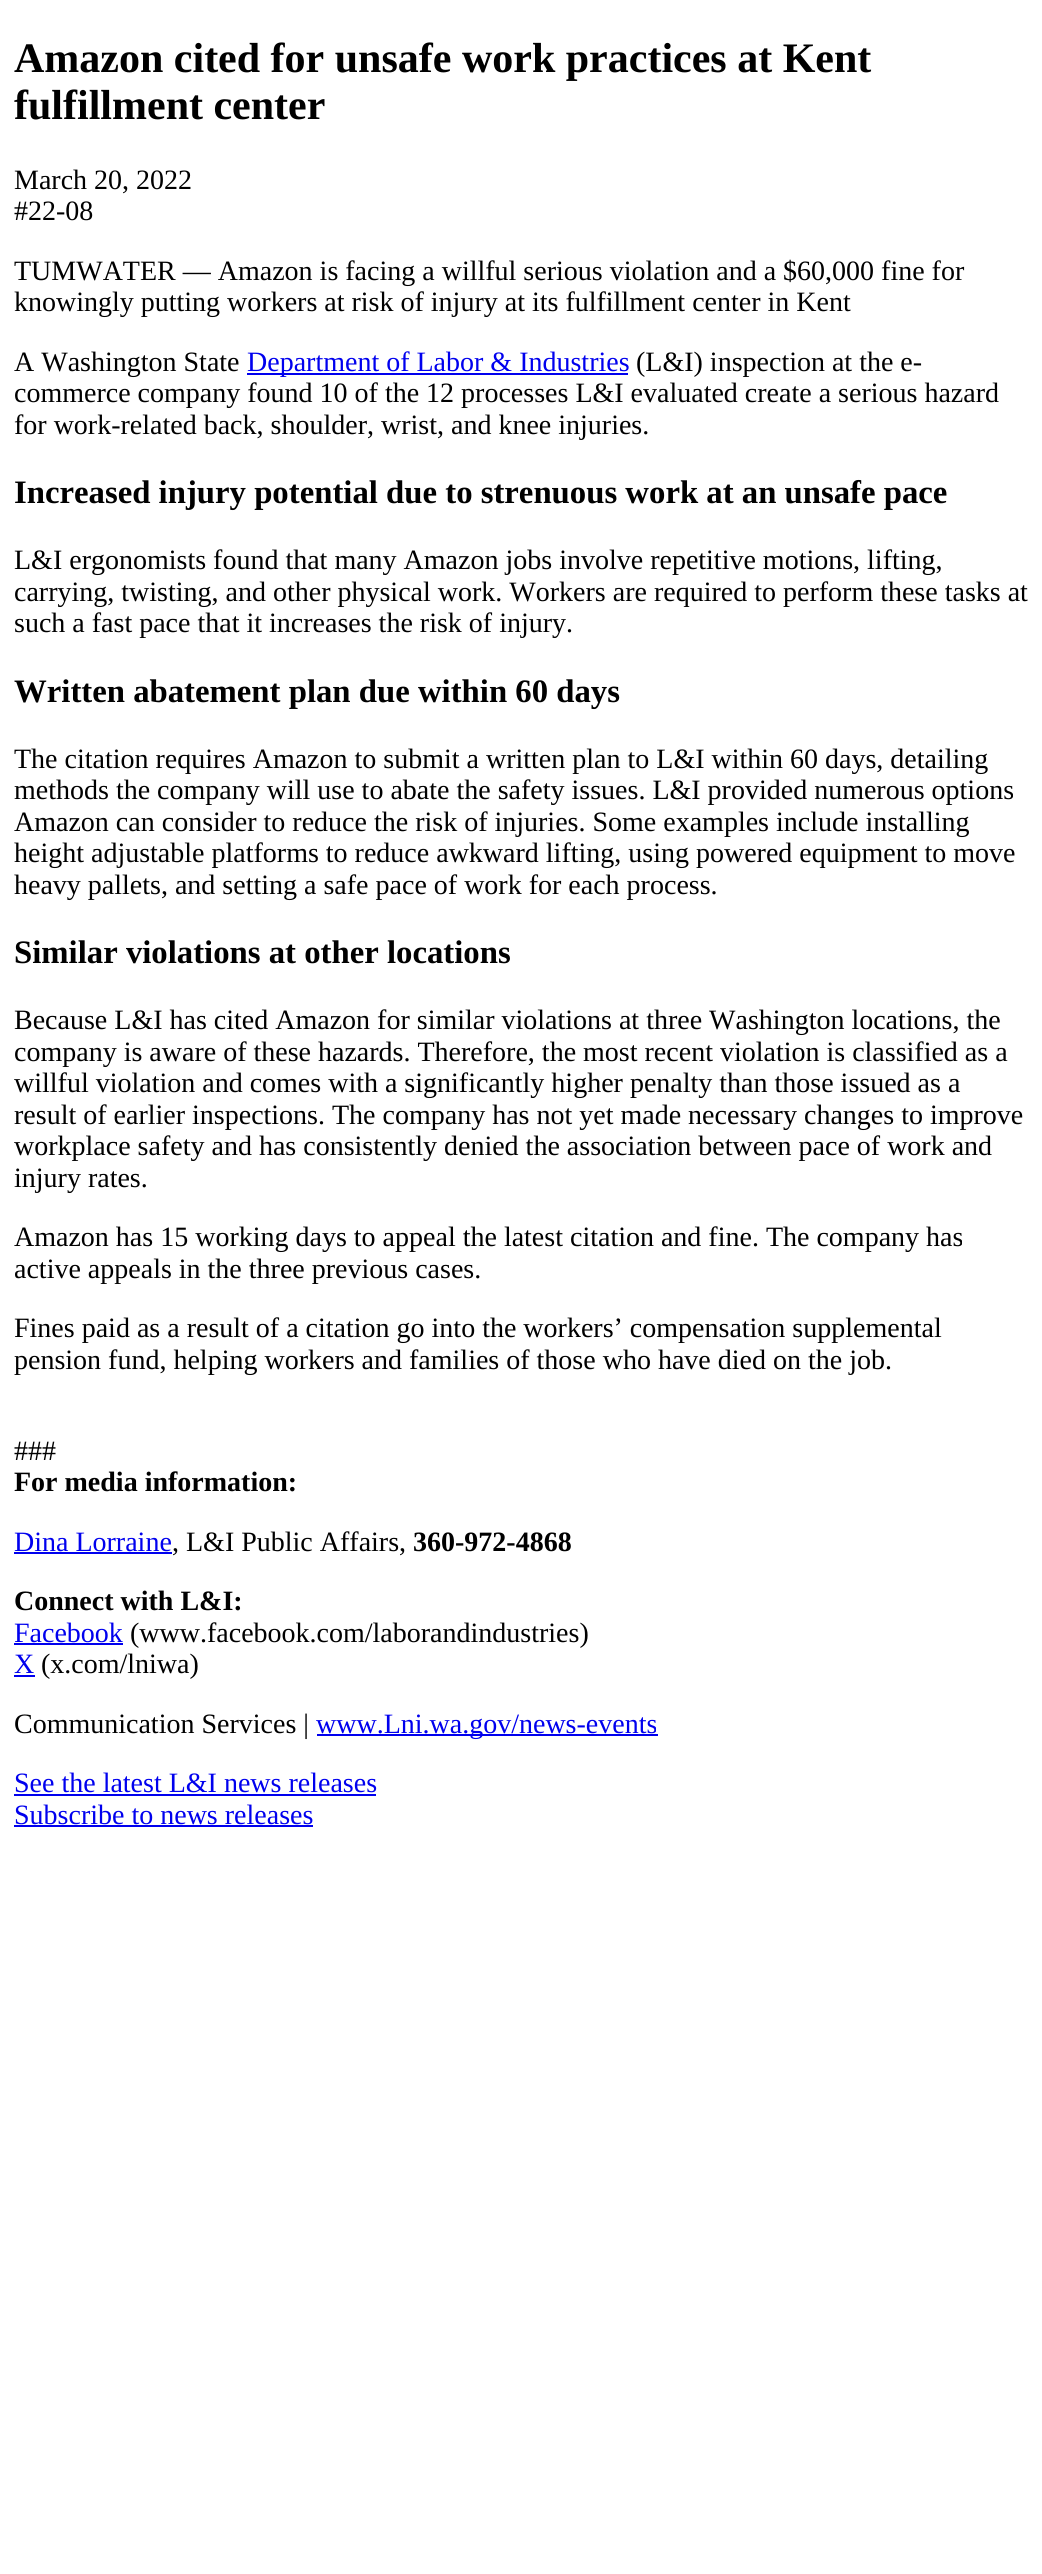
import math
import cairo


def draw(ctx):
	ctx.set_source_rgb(1, 1, 1)
	ctx.paint()
	ctx.select_font_face('Liberation Serif', cairo.FONT_SLANT_NORMAL, cairo.FONT_WEIGHT_BOLD)
	ctx.set_font_size(42)
	ctx.set_source_rgb(0, 0, 0)
	ctx.move_to(14, 72)
	ctx.show_text('Amazon cited for unsafe work practices at Kent')
	ctx.move_to(14, 119)
	ctx.show_text('fulfillment center')
	ctx.select_font_face('Liberation Serif')
	ctx.set_font_size(28)
	for x, y, s in [
		(14, 189, 'March 20, 2022'),
		(14, 220, '#22-08'),
		(14, 280, 'TUMWATER — Amazon is facing a willful serious violation and a $60,000 fine for'),
		(14, 311, 'knowingly putting workers at risk of injury at its fulfillment center in Kent'),
		(14, 371, 'A Washington State'),
	]:
		ctx.move_to(x, y)
		ctx.show_text(s)
	ctx.set_source_rgb(0, 0, 0.933)
	ctx.rectangle(247, 373, 381, 2)
	ctx.fill()
	ctx.move_to(247, 371)
	ctx.show_text('Department of Labor & Industries')
	ctx.set_source_rgb(0, 0, 0)
	for x, y, s in [
		(636, 371, '(L&I) inspection at the e-'),
		(14, 402, 'commerce company found 10 of the 12 processes L&I evaluated create a serious hazard'),
		(14, 434, 'for work-related back, shoulder, wrist, and knee injuries.'),
	]:
		ctx.move_to(x, y)
		ctx.show_text(s)
	ctx.select_font_face('Liberation Serif', cairo.FONT_SLANT_NORMAL, cairo.FONT_WEIGHT_BOLD)
	ctx.set_font_size(32.75)
	ctx.move_to(14, 503)
	ctx.show_text('Increased injury potential due to strenuous work at an unsafe pace')
	ctx.select_font_face('Liberation Serif')
	ctx.set_font_size(28)
	for x, y, s in [
		(14, 569, 'L&I ergonomists found that many Amazon jobs involve repetitive motions, lifting,'),
		(14, 601, 'carrying, twisting, and other physical work. Workers are required to perform these tasks at'),
		(14, 632, 'such a fast pace that it increases the risk of injury.'),
	]:
		ctx.move_to(x, y)
		ctx.show_text(s)
	ctx.select_font_face('Liberation Serif', cairo.FONT_SLANT_NORMAL, cairo.FONT_WEIGHT_BOLD)
	ctx.set_font_size(32.75)
	ctx.move_to(14, 702)
	ctx.show_text('Written abatement plan due within 60 days')
	ctx.select_font_face('Liberation Serif')
	ctx.set_font_size(28)
	for x, y, s in [
		(14, 768, 'The citation requires Amazon to submit a written plan to L&I within 60 days, detailing'),
		(14, 799, 'methods the company will use to abate the safety issues. L&I provided numerous options'),
		(14, 831, 'Amazon can consider to reduce the risk of injuries. Some examples include installing'),
		(14, 862, 'height adjustable platforms to reduce awkward lifting, using powered equipment to move'),
		(14, 894, 'heavy pallets, and setting a safe pace of work for each process.'),
	]:
		ctx.move_to(x, y)
		ctx.show_text(s)
	ctx.select_font_face('Liberation Serif', cairo.FONT_SLANT_NORMAL, cairo.FONT_WEIGHT_BOLD)
	ctx.set_font_size(32.75)
	ctx.move_to(14, 963)
	ctx.show_text('Similar violations at other locations')
	ctx.select_font_face('Liberation Serif')
	ctx.set_font_size(28)
	for x, y, s in [
		(14, 1029, 'Because L&I has cited Amazon for similar violations at three Washington locations, the'),
		(14, 1061, 'company is aware of these hazards. Therefore, the most recent violation is classified as a'),
		(14, 1092, 'willful violation and comes with a significantly higher penalty than those issued as a'),
		(14, 1124, 'result of earlier inspections. The company has not yet made necessary changes to improve'),
		(14, 1155, 'workplace safety and has consistently denied the association between pace of work and'),
		(14, 1187, 'injury rates.'),
		(14, 1246, 'Amazon has 15 working days to appeal the latest citation and fine. The company has'),
		(14, 1278, 'active appeals in the three previous cases.'),
		(14, 1337, 'Fines paid as a result of a citation go into the workers’ compensation supplemental'),
		(14, 1369, 'pension fund, helping workers and families of those who have died on the job.'),
		(14, 1460, '###'),
	]:
		ctx.move_to(x, y)
		ctx.show_text(s)
	ctx.select_font_face('Liberation Serif', cairo.FONT_SLANT_NORMAL, cairo.FONT_WEIGHT_BOLD)
	ctx.move_to(14, 1491)
	ctx.show_text('For media information:')
	ctx.select_font_face('Liberation Serif')
	ctx.set_source_rgb(0, 0, 0.933)
	ctx.move_to(14, 1551)
	ctx.show_text('Dina Lorraine')
	ctx.rectangle(14, 1552, 158, 2)
	ctx.fill()
	ctx.set_source_rgb(0, 0, 0)
	ctx.move_to(172, 1551)
	ctx.show_text(', L&I Public Affairs,')
	ctx.select_font_face('Liberation Serif', cairo.FONT_SLANT_NORMAL, cairo.FONT_WEIGHT_BOLD)
	ctx.move_to(413, 1551)
	ctx.show_text('360-972-4868')
	ctx.move_to(14, 1610)
	ctx.show_text('Connect with L&I:')
	ctx.select_font_face('Liberation Serif')
	ctx.set_source_rgb(0, 0, 0.933)
	ctx.move_to(14, 1642)
	ctx.show_text('Facebook')
	ctx.rectangle(14, 1643, 109, 2)
	ctx.fill()
	ctx.set_source_rgb(0, 0, 0)
	ctx.move_to(130, 1642)
	ctx.show_text('(www.facebook.com/laborandindustries)')
	ctx.set_source_rgb(0, 0, 0.933)
	ctx.move_to(14, 1673)
	ctx.show_text('X')
	ctx.rectangle(14, 1675, 21, 2)
	ctx.fill()
	ctx.set_source_rgb(0, 0, 0)
	ctx.move_to(41, 1673)
	ctx.show_text('(x.com/lniwa)')
	ctx.move_to(14, 1733)
	ctx.show_text('Communication Services |')
	ctx.set_source_rgb(0, 0, 0.933)
	ctx.rectangle(317, 1734, 341, 2)
	ctx.fill()
	ctx.move_to(316, 1733)
	ctx.show_text('www.Lni.wa.gov/news-events')
	ctx.move_to(14, 1792)
	ctx.show_text('See the latest L&I news releases')
	ctx.rectangle(14, 1794, 362, 2)
	ctx.fill()
	ctx.move_to(14, 1824)
	ctx.show_text('Subscribe to news releases')
	ctx.rectangle(14, 1825, 299, 2)
	ctx.fill()


surface = cairo.ImageSurface(cairo.FORMAT_RGB24, 1042, 2574)
ctx = cairo.Context(surface)
options = cairo.FontOptions()
options.set_hint_metrics(cairo.HINT_METRICS_OFF)
options.set_hint_style(cairo.HINT_STYLE_NONE)
ctx.set_font_options(options)
ctx.set_miter_limit(4)
draw(ctx)
surface.write_to_png('image.png')
